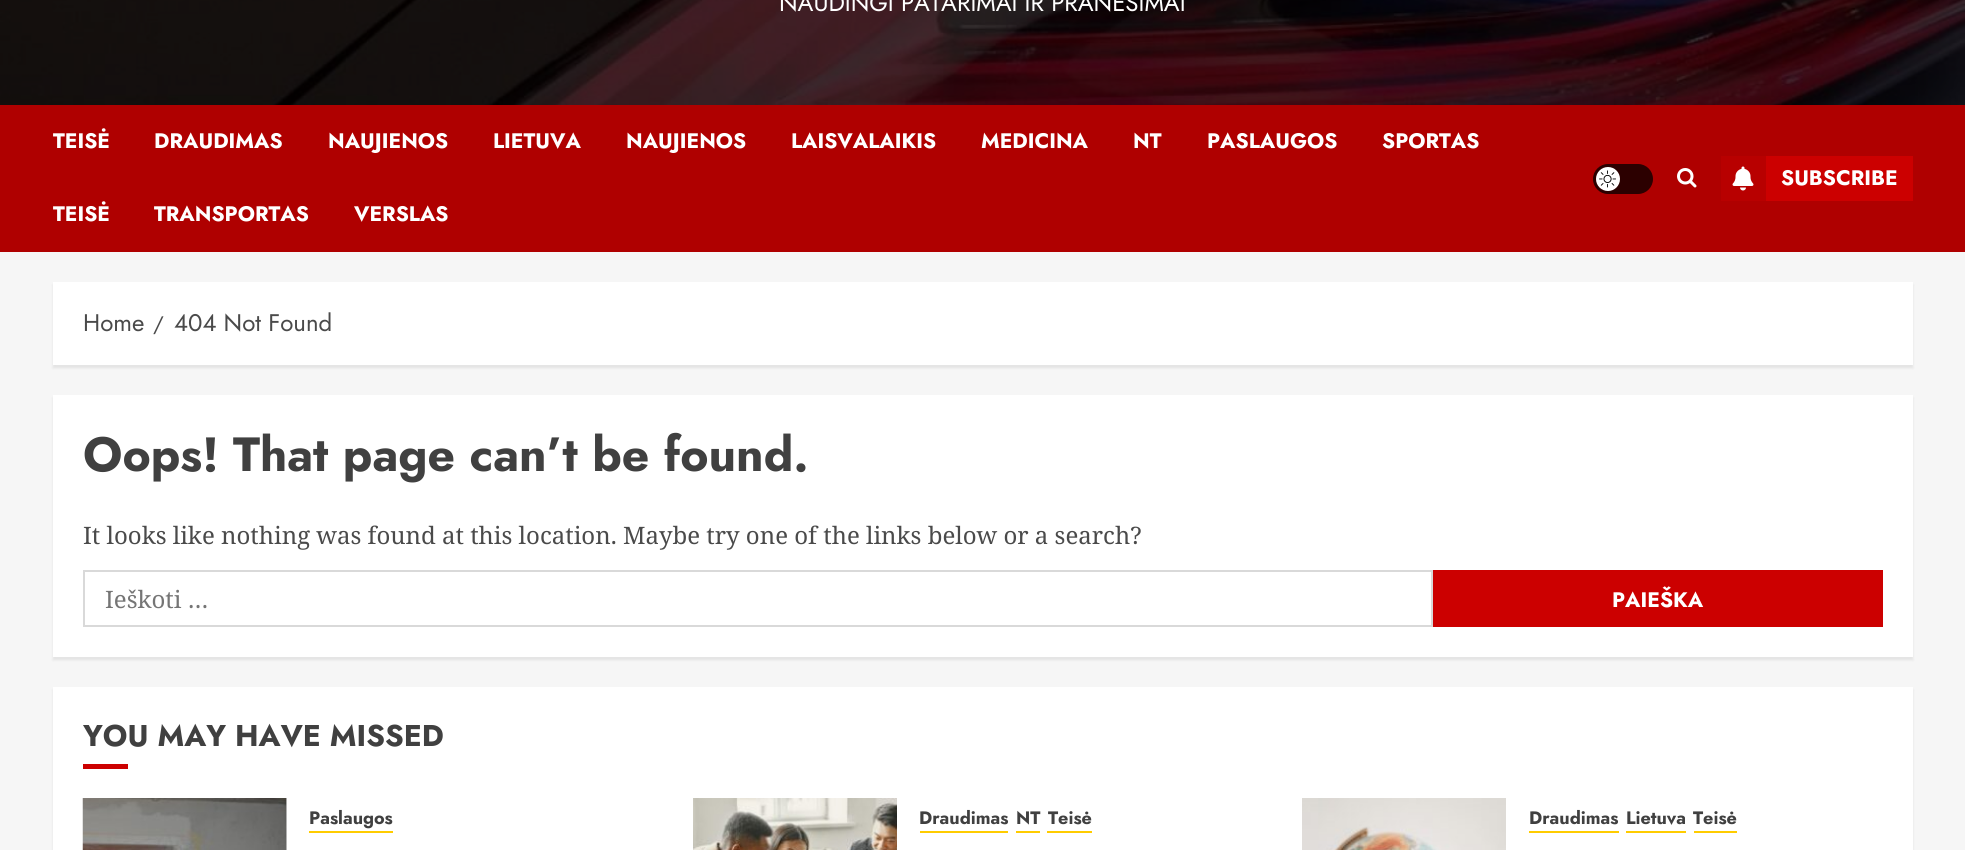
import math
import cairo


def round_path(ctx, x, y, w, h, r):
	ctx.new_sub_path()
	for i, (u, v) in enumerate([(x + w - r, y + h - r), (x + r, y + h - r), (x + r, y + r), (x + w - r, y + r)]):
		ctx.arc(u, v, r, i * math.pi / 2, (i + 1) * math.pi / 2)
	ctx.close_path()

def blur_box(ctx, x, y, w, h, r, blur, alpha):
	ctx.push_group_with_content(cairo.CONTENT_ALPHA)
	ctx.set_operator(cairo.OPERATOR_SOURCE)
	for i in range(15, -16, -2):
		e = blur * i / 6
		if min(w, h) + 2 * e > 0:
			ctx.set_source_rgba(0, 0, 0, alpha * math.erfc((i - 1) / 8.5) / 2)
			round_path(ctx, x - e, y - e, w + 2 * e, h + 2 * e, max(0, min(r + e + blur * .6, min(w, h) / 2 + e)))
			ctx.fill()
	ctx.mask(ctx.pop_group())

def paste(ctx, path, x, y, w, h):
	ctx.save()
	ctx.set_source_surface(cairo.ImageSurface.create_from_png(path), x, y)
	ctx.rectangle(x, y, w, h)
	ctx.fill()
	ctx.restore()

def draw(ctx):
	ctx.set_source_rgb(0.961, 0.961, 0.961)
	ctx.paint()
	paste(ctx, 'media/1.png', 0, 0, 1965, 105)
	ctx.select_font_face('Jost')
	ctx.set_font_size(24)
	ctx.set_source_rgb(1, 1, 1)
	ctx.move_to(779, 11)
	ctx.show_text('NAUDINGI PATARIMAI IR PRANEŠIMAI')
	ctx.set_source_rgb(0.686, 0, 0)
	ctx.rectangle(0, 105, 1965, 147)
	ctx.fill()
	ctx.select_font_face('Jost', cairo.FONT_SLANT_NORMAL, cairo.FONT_WEIGHT_BOLD)
	ctx.set_font_size(21)
	ctx.set_source_rgb(1, 1, 1)
	for x, y, s in [
		(53, 148, 'TEISĖ'),
		(154, 148, 'DRAUDIMAS'),
		(328, 148, 'NAUJIENOS'),
		(493, 148, 'LIETUVA'),
		(626, 148, 'NAUJIENOS'),
		(791, 148, 'LAISVALAIKIS'),
		(981, 148, 'MEDICINA'),
		(1133, 148, 'NT'),
		(1207, 148, 'PASLAUGOS'),
		(1382, 148, 'SPORTAS'),
		(53, 221, 'TEISĖ'),
		(154, 221, 'TRANSPORTAS'),
		(354, 221, 'VERSLAS'),
	]:
		ctx.move_to(x, y)
		ctx.show_text(s)
	ctx.set_source_rgb(0.173, 0, 0)
	round_path(ctx, 1593, 164, 60, 30, 15)
	ctx.fill()
	ctx.set_source_rgb(1, 1, 1)
	ctx.arc(1608, 179, 12, 0, 2 * math.pi)
	ctx.fill()
	paste(ctx, 'media/2.png', 1599, 170, 17, 18)
	paste(ctx, 'media/3.png', 1677, 168, 20, 20)
	ctx.set_source_rgb(0.8, 0, 0)
	ctx.rectangle(1766, 156, 147, 45)
	ctx.fill()
	ctx.set_source_rgb(0.722, 0, 0)
	ctx.rectangle(1721, 156, 45, 45)
	ctx.fill()
	paste(ctx, 'media/4.png', 1732, 166, 22, 25)
	ctx.set_source_rgb(1, 1, 1)
	ctx.move_to(1781, 185)
	ctx.show_text('SUBSCRIBE')
	ctx.set_source_rgb(0, 0, 0)
	blur_box(ctx, 53, 285, 1860, 83, 0, 1.5, 0.08)
	ctx.set_source_rgb(1, 1, 1)
	ctx.rectangle(53, 282, 1860, 83)
	ctx.fill()
	ctx.select_font_face('Jost')
	ctx.set_font_size(24)
	ctx.set_source_rgb(0.29, 0.29, 0.29)
	ctx.move_to(83, 331)
	ctx.show_text('Home')
	ctx.set_font_size(21)
	ctx.move_to(153, 331)
	ctx.show_text('/')
	ctx.set_font_size(24)
	ctx.move_to(174, 331)
	ctx.show_text('404 Not Found')
	ctx.set_source_rgb(0, 0, 0)
	blur_box(ctx, 53, 398, 1860, 262, 0, 1.5, 0.08)
	ctx.set_source_rgb(1, 1, 1)
	ctx.rectangle(53, 395, 1860, 262)
	ctx.fill()
	ctx.select_font_face('Jost', cairo.FONT_SLANT_NORMAL, cairo.FONT_WEIGHT_BOLD)
	ctx.set_font_size(48)
	ctx.set_source_rgb(0.251, 0.251, 0.251)
	ctx.move_to(83, 471)
	ctx.show_text('Oops! That page can’t be found.')
	ctx.select_font_face('Noto Serif')
	ctx.set_font_size(24)
	ctx.set_source_rgb(0.29, 0.29, 0.29)
	ctx.move_to(83, 544)
	ctx.show_text('It looks like nothing was found at this location. Maybe try one of the links below or a search?')
	ctx.rectangle(84, 571, 1348, 55)
	ctx.set_source_rgb(0.851, 0.851, 0.851)
	ctx.stroke()
	ctx.set_source_rgb(0.459, 0.459, 0.459)
	ctx.move_to(105, 608)
	ctx.show_text('Ieškoti …')
	ctx.set_source_rgb(0.8, 0, 0)
	ctx.rectangle(1433, 570, 450, 57)
	ctx.fill()
	ctx.select_font_face('Jost', cairo.FONT_SLANT_NORMAL, cairo.FONT_WEIGHT_BOLD)
	ctx.set_font_size(21)
	ctx.set_source_rgb(1, 1, 1)
	ctx.move_to(1612, 607)
	ctx.show_text('PAIEŠKA')
	ctx.set_source_rgb(0, 0, 0)
	blur_box(ctx, 53, 690, 1860, 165, 0, 1.5, 0.08)
	ctx.set_source_rgb(1, 1, 1)
	ctx.rectangle(53, 687, 1860, 163)
	ctx.fill()
	ctx.set_font_size(30)
	ctx.set_source_rgb(0.251, 0.251, 0.251)
	ctx.move_to(83, 746)
	ctx.show_text('YOU MAY HAVE MISSED')
	ctx.set_source_rgb(0.8, 0, 0)
	ctx.rectangle(83, 764, 45, 5)
	ctx.fill()
	ctx.set_source_rgb(0.8, 0.8, 0.8)
	ctx.rectangle(286, 798, 1, 52)
	ctx.fill()
	paste(ctx, 'media/5.png', 82, 798, 205, 52)
	ctx.set_source_rgb(1, 0.8, 0)
	ctx.rectangle(309, 831, 84, 2)
	ctx.fill()
	ctx.set_font_size(18)
	ctx.set_source_rgb(0.251, 0.251, 0.251)
	ctx.move_to(309, 824)
	ctx.show_text('Paslaugos')
	paste(ctx, 'media/6.png', 693, 798, 204, 52)
	ctx.set_source_rgb(1, 0.8, 0)
	ctx.rectangle(920, 831, 88, 2)
	ctx.fill()
	ctx.set_source_rgb(0.251, 0.251, 0.251)
	ctx.move_to(919, 824)
	ctx.show_text('Draudimas')
	ctx.set_source_rgb(1, 0.8, 0)
	ctx.rectangle(1016, 831, 24, 2)
	ctx.fill()
	ctx.set_source_rgb(0.251, 0.251, 0.251)
	ctx.move_to(1016, 824)
	ctx.show_text('NT')
	ctx.set_source_rgb(1, 0.8, 0)
	ctx.rectangle(1047, 831, 45, 2)
	ctx.fill()
	ctx.set_source_rgb(0.251, 0.251, 0.251)
	ctx.move_to(1048, 824)
	ctx.show_text('Teisė')
	paste(ctx, 'media/7.png', 1302, 798, 204, 52)
	ctx.set_source_rgb(1, 0.8, 0)
	ctx.rectangle(1529, 831, 90, 2)
	ctx.fill()
	ctx.set_source_rgb(0.251, 0.251, 0.251)
	ctx.move_to(1529, 824)
	ctx.show_text('Draudimas')
	ctx.set_source_rgb(1, 0.8, 0)
	ctx.rectangle(1626, 831, 60, 2)
	ctx.fill()
	ctx.set_source_rgb(0.251, 0.251, 0.251)
	ctx.move_to(1626, 824)
	ctx.show_text('Lietuva')
	ctx.set_source_rgb(1, 0.8, 0)
	ctx.rectangle(1694, 831, 43, 2)
	ctx.fill()
	ctx.set_source_rgb(0.251, 0.251, 0.251)
	ctx.move_to(1693, 824)
	ctx.show_text('Teisė')


surface = cairo.ImageSurface(cairo.FORMAT_RGB24, 1965, 850)
ctx = cairo.Context(surface)
options = cairo.FontOptions()
options.set_hint_metrics(cairo.HINT_METRICS_OFF)
options.set_hint_style(cairo.HINT_STYLE_NONE)
ctx.set_font_options(options)
ctx.set_miter_limit(4)
draw(ctx)
surface.write_to_png('image.png')
